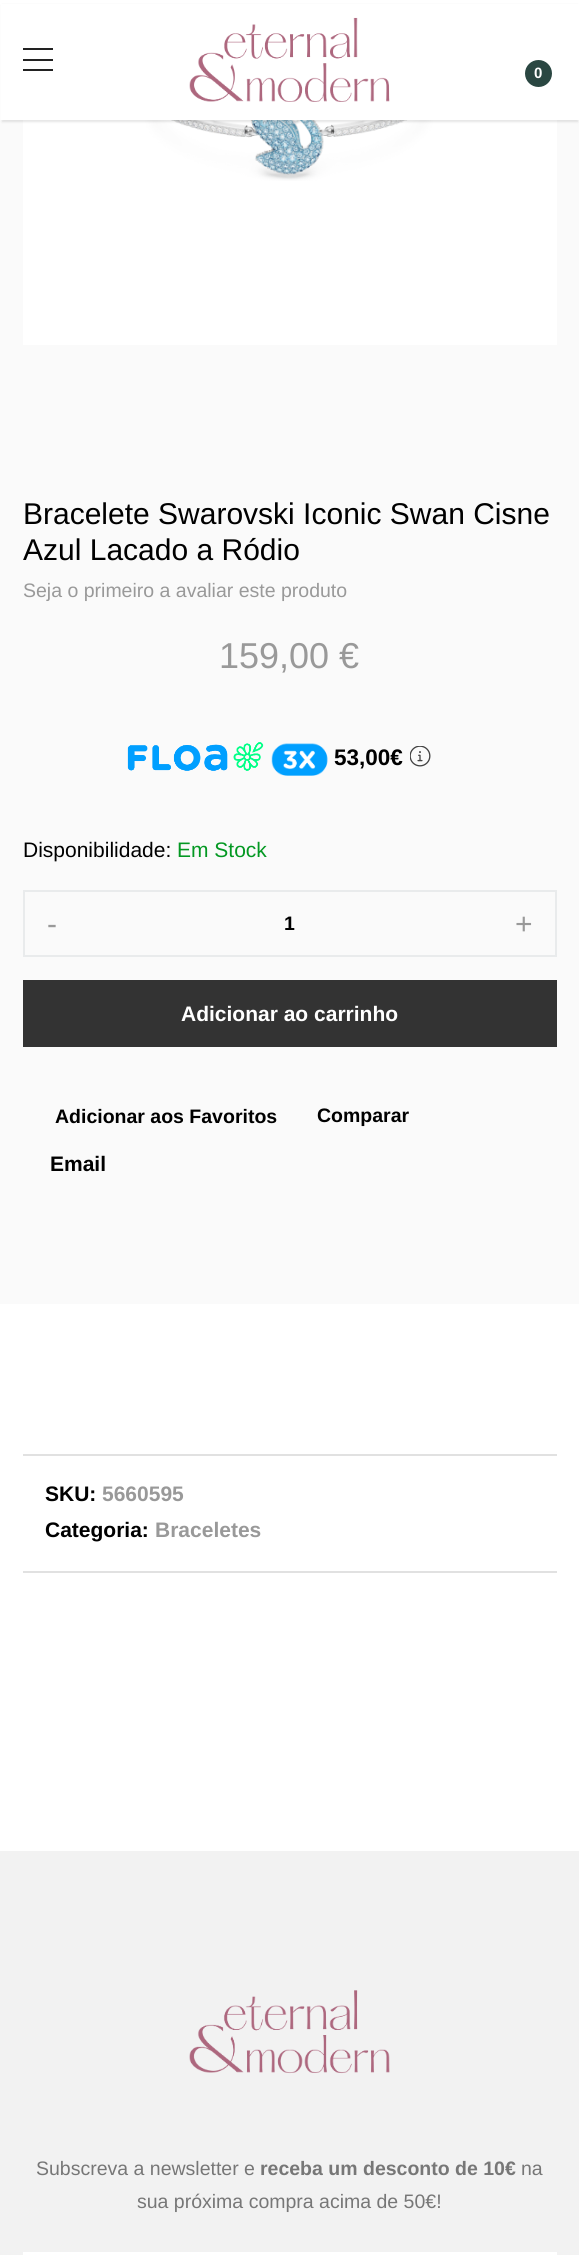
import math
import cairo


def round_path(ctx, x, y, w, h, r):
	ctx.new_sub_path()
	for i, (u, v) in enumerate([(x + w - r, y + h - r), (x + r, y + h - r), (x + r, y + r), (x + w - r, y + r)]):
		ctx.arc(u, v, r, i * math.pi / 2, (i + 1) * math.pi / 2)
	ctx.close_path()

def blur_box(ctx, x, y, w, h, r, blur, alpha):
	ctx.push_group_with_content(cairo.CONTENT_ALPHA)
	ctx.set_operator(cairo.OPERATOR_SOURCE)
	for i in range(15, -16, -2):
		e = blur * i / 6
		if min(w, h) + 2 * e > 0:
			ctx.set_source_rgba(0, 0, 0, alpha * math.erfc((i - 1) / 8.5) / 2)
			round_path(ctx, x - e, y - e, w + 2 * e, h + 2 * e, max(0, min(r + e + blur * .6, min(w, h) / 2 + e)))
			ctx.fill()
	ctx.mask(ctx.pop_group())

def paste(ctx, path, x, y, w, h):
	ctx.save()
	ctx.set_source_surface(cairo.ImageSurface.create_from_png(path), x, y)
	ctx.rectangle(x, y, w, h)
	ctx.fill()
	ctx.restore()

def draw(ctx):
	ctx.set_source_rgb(1, 1, 1)
	ctx.paint()
	ctx.set_source_rgb(0.98, 0.98, 0.98)
	ctx.rectangle(0, 120, 579, 1184)
	ctx.fill()
	ctx.set_source_rgb(1, 1, 1)
	ctx.rectangle(23, 120, 534, 225)
	ctx.fill()
	paste(ctx, 'media/2.png', 145, 120, 288, 61)
	ctx.set_source_rgb(0, 0, 0)
	blur_box(ctx, 2, 5, 576, 117, 0, 1, 0.1)
	ctx.set_source_rgb(1, 1, 1)
	ctx.rectangle(1, 4, 578, 116)
	ctx.fill()
	ctx.set_source_rgb(0.133, 0.133, 0.133)
	ctx.rectangle(23, 48, 30, 2)
	ctx.rectangle(23, 59, 30, 2)
	ctx.rectangle(23, 69, 30, 2)
	ctx.fill()
	paste(ctx, 'media/1.png', 189, 17, 201, 85)
	ctx.set_source_rgb(0.165, 0.278, 0.259)
	ctx.arc(538.5, 73.5, 13.5, 0, 2 * math.pi)
	ctx.fill()
	ctx.select_font_face('Liberation Sans', cairo.FONT_SLANT_NORMAL, cairo.FONT_WEIGHT_BOLD)
	ctx.set_font_size(15)
	ctx.set_source_rgb(1, 1, 1)
	ctx.move_to(534, 78)
	ctx.show_text('0')
	ctx.select_font_face('Liberation Sans')
	ctx.set_font_size(30)
	ctx.set_source_rgb(0, 0, 0)
	ctx.move_to(23, 524)
	ctx.show_text('Bracelete Swarovski Iconic Swan Cisne')
	ctx.move_to(23, 560)
	ctx.show_text('Azul Lacado a Ródio')
	ctx.set_font_size(19.5)
	ctx.set_source_rgb(0.6, 0.6, 0.6)
	ctx.move_to(23, 597)
	ctx.show_text('Seja o primeiro a avaliar este produto')
	ctx.set_font_size(36)
	ctx.move_to(219, 668)
	ctx.show_text('159,00 €')
	paste(ctx, 'media/3.png', 127, 742, 137, 29)
	paste(ctx, 'media/4.png', 271, 743, 57, 33)
	ctx.select_font_face('Liberation Sans', cairo.FONT_SLANT_NORMAL, cairo.FONT_WEIGHT_BOLD)
	ctx.set_font_size(22.5)
	ctx.set_source_rgb(0, 0, 0)
	ctx.move_to(334, 765)
	ctx.show_text('53,00€')
	paste(ctx, 'media/5.png', 410, 746, 21, 21)
	ctx.select_font_face('Liberation Sans')
	ctx.set_font_size(21)
	ctx.move_to(23, 857)
	ctx.show_text('Disponibilidade:')
	ctx.set_source_rgb(0.012, 0.596, 0.133)
	ctx.move_to(177, 857)
	ctx.show_text('Em Stock')
	ctx.rectangle(24, 891, 532, 65)
	ctx.set_source_rgb(0.914, 0.918, 0.922)
	ctx.stroke()
	ctx.set_font_size(30)
	ctx.set_source_rgb(0.6, 0.6, 0.6)
	ctx.move_to(47, 934)
	ctx.show_text('-')
	ctx.select_font_face('Liberation Sans', cairo.FONT_SLANT_NORMAL, cairo.FONT_WEIGHT_BOLD)
	ctx.set_font_size(19.5)
	ctx.set_source_rgb(0, 0, 0)
	ctx.move_to(284, 930)
	ctx.show_text('1')
	ctx.select_font_face('Liberation Sans')
	ctx.set_font_size(30)
	ctx.set_source_rgb(0.6, 0.6, 0.6)
	ctx.move_to(515, 934)
	ctx.show_text('+')
	ctx.set_source_rgb(0.2, 0.2, 0.2)
	ctx.rectangle(23, 980, 534, 67)
	ctx.fill()
	ctx.select_font_face('Liberation Sans', cairo.FONT_SLANT_NORMAL, cairo.FONT_WEIGHT_BOLD)
	ctx.set_font_size(21)
	ctx.set_source_rgb(1, 1, 1)
	ctx.move_to(181, 1021)
	ctx.show_text('Adicionar ao carrinho')
	ctx.set_font_size(19.5)
	ctx.set_source_rgb(0, 0, 0)
	ctx.move_to(55, 1123)
	ctx.show_text('Adicionar aos Favoritos')
	ctx.move_to(317, 1122)
	ctx.show_text('Comparar')
	ctx.set_font_size(21)
	ctx.move_to(50, 1171)
	ctx.show_text('Email')
	ctx.set_source_rgb(0.882, 0.882, 0.882)
	ctx.rectangle(23, 1454, 534, 2)
	ctx.fill()
	ctx.rectangle(23, 1571, 534, 2)
	ctx.fill()
	ctx.set_source_rgb(0, 0, 0)
	ctx.move_to(45, 1501)
	ctx.show_text('SKU:')
	ctx.set_source_rgb(0.6, 0.6, 0.6)
	ctx.move_to(102, 1501)
	ctx.show_text('5660595')
	ctx.set_source_rgb(0, 0, 0)
	ctx.move_to(45, 1537)
	ctx.show_text('Categoria:')
	ctx.set_source_rgb(0.6, 0.6, 0.6)
	ctx.move_to(155, 1537)
	ctx.show_text('Braceletes')
	ctx.set_source_rgb(0.949, 0.949, 0.949)
	ctx.rectangle(0, 1851, 579, 404)
	ctx.fill()
	paste(ctx, 'media/6.png', 189, 1990, 201, 84)
	ctx.select_font_face('Liberation Sans')
	ctx.set_font_size(19.5)
	ctx.set_source_rgb(0.467, 0.467, 0.467)
	ctx.move_to(36, 2175)
	ctx.show_text('Subscreva a newsletter e')
	ctx.select_font_face('Liberation Sans', cairo.FONT_SLANT_NORMAL, cairo.FONT_WEIGHT_BOLD)
	ctx.move_to(260, 2175)
	ctx.show_text('receba um desconto de 10€')
	ctx.select_font_face('Liberation Sans')
	ctx.move_to(521, 2175)
	ctx.show_text('na')
	ctx.move_to(137, 2208)
	ctx.show_text('sua próxima compra acima de 50€!')
	ctx.set_source_rgb(1, 1, 1)
	ctx.rectangle(23, 2252, 534, 3)
	ctx.fill()


surface = cairo.ImageSurface(cairo.FORMAT_RGB24, 579, 2255)
ctx = cairo.Context(surface)
options = cairo.FontOptions()
options.set_hint_metrics(cairo.HINT_METRICS_OFF)
options.set_hint_style(cairo.HINT_STYLE_NONE)
ctx.set_font_options(options)
ctx.set_miter_limit(4)
draw(ctx)
surface.write_to_png('image.png')
